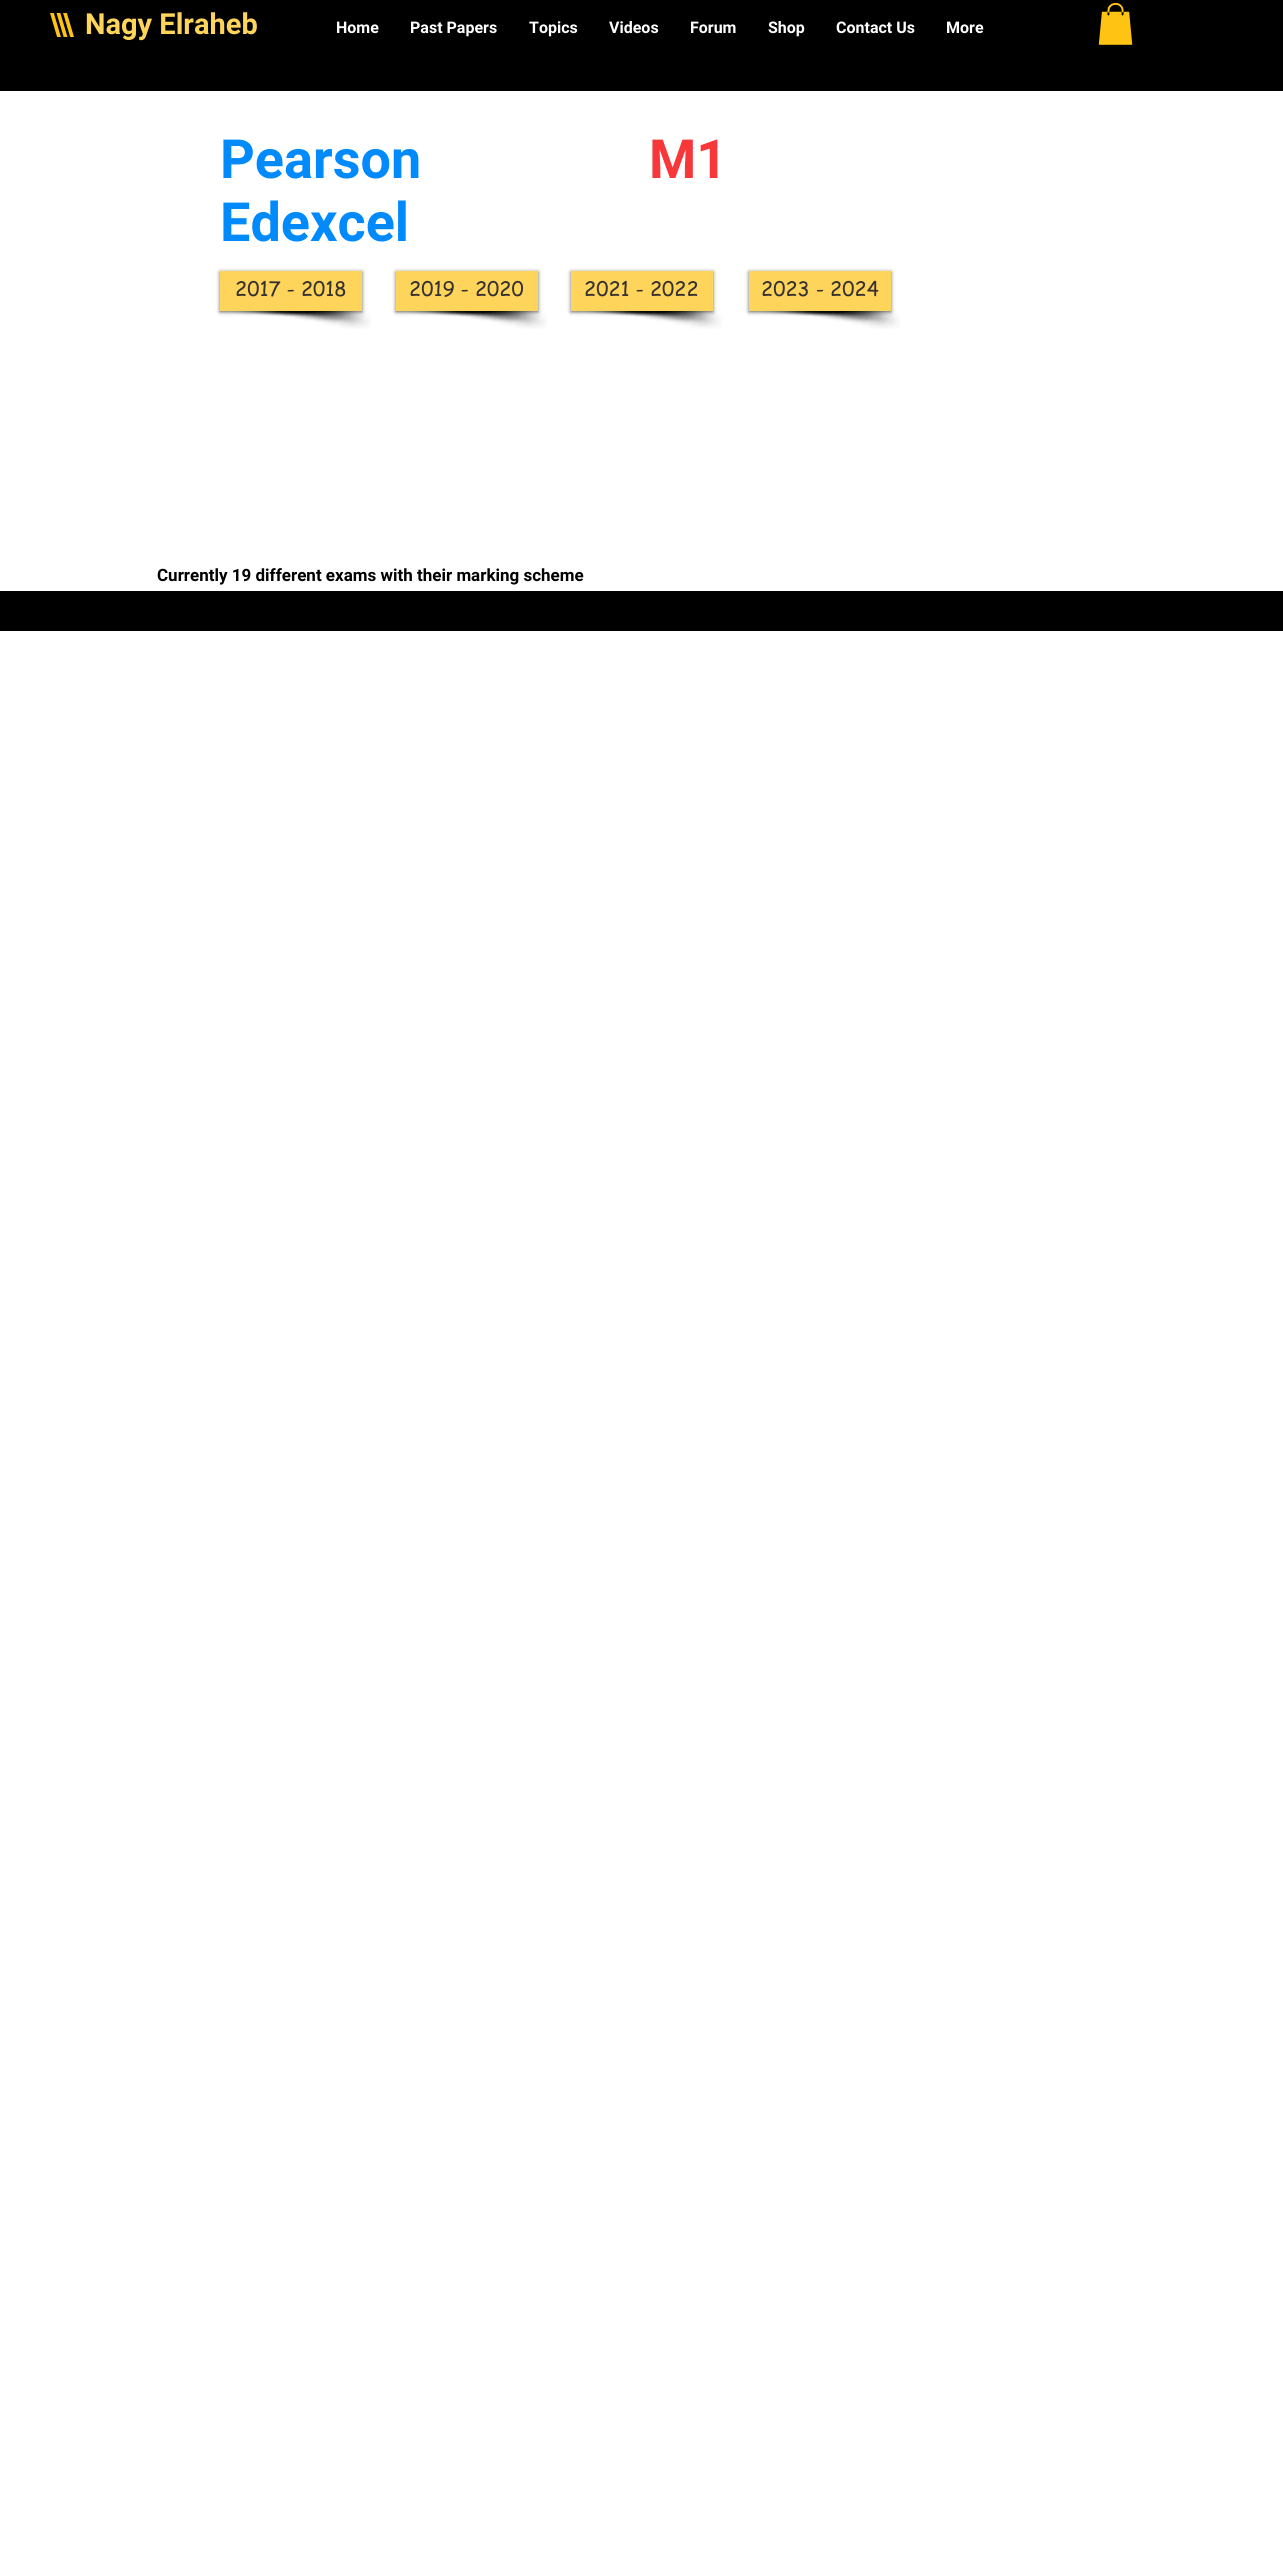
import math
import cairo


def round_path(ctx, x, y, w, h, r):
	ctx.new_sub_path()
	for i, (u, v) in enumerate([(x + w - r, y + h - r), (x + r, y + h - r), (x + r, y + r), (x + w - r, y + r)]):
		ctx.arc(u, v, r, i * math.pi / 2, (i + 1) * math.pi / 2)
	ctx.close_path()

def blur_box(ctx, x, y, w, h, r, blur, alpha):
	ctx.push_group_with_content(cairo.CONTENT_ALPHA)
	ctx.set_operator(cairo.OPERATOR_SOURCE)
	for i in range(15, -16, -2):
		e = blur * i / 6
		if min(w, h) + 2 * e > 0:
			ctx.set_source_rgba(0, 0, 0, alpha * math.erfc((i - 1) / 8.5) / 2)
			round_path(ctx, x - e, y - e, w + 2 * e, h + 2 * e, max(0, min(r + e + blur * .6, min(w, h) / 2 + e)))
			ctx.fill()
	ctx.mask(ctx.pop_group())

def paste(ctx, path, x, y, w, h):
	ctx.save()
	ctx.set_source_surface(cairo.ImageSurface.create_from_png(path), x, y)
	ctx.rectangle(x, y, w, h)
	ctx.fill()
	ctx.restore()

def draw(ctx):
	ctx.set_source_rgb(1, 1, 1)
	ctx.paint()
	ctx.set_source_rgb(0, 0, 0)
	ctx.rectangle(0, 0, 1283, 91)
	ctx.fill()
	paste(ctx, 'media/1.png', 50, 13, 24, 24)
	ctx.select_font_face('Roboto', cairo.FONT_SLANT_NORMAL, cairo.FONT_WEIGHT_BOLD)
	ctx.set_font_size(29)
	ctx.set_source_rgb(1, 0.831, 0.353)
	ctx.move_to(85, 34)
	ctx.show_text('Nagy Elraheb')
	ctx.set_font_size(16)
	ctx.set_source_rgb(1, 1, 1)
	for x, y, s in [
		(336, 33, 'Home'),
		(410, 33, 'Past Papers'),
		(529, 33, 'Topics'),
		(609, 33, 'Videos'),
		(690, 33, 'Forum'),
		(768, 33, 'Shop'),
		(836, 33, 'Contact Us'),
		(946, 33, 'More'),
	]:
		ctx.move_to(x, y)
		ctx.show_text(s)
	paste(ctx, 'media/2.png', 1098, 3, 35, 42)
	ctx.set_font_size(54)
	ctx.set_source_rgb(0, 0.541, 0.988)
	ctx.move_to(220, 178)
	ctx.show_text('Pearson')
	ctx.move_to(220, 241)
	ctx.show_text('Edexcel')
	ctx.set_source_rgb(0.969, 0.216, 0.227)
	ctx.move_to(649, 178)
	ctx.show_text('M1')
	paste(ctx, 'media/3.png', 217, 311, 154, 18)
	ctx.set_source_rgb(0, 0, 0)
	blur_box(ctx, 220, 272, 142, 40, 0, 2, 0.6)
	ctx.set_source_rgb(1, 0.831, 0.353)
	ctx.rectangle(220, 271, 142, 40)
	ctx.fill()
	ctx.select_font_face('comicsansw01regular')
	ctx.set_font_size(20)
	ctx.set_source_rgb(0.208, 0.192, 0.192)
	ctx.move_to(235, 296)
	ctx.show_text('2017 - 2018')
	paste(ctx, 'media/3.png', 393, 311, 154, 18)
	ctx.set_source_rgb(0, 0, 0)
	blur_box(ctx, 396, 272, 142, 40, 0, 2, 0.6)
	ctx.set_source_rgb(1, 0.831, 0.353)
	ctx.rectangle(396, 271, 142, 40)
	ctx.fill()
	ctx.set_source_rgb(0.208, 0.192, 0.192)
	ctx.move_to(409, 296)
	ctx.show_text('2019 - 2020')
	paste(ctx, 'media/3.png', 568, 311, 154, 18)
	ctx.set_source_rgb(0, 0, 0)
	blur_box(ctx, 571, 272, 142, 40, 0, 2, 0.6)
	ctx.set_source_rgb(1, 0.831, 0.353)
	ctx.rectangle(571, 271, 142, 40)
	ctx.fill()
	ctx.set_source_rgb(0.208, 0.192, 0.192)
	ctx.move_to(584, 296)
	ctx.show_text('2021 - 2022')
	paste(ctx, 'media/3.png', 746, 311, 154, 18)
	ctx.set_source_rgb(0, 0, 0)
	blur_box(ctx, 749, 272, 142, 40, 0, 2, 0.6)
	ctx.set_source_rgb(1, 0.831, 0.353)
	ctx.rectangle(749, 271, 142, 40)
	ctx.fill()
	ctx.set_source_rgb(0.208, 0.192, 0.192)
	ctx.move_to(761, 296)
	ctx.show_text('2023 - 2024')
	ctx.select_font_face('Roboto', cairo.FONT_SLANT_NORMAL, cairo.FONT_WEIGHT_BOLD)
	ctx.set_font_size(17)
	ctx.set_source_rgb(0, 0, 0)
	ctx.move_to(157, 581)
	ctx.show_text('Currently 19 different exams with their marking scheme')
	ctx.rectangle(0, 591, 1283, 40)
	ctx.fill()


surface = cairo.ImageSurface(cairo.FORMAT_RGB24, 1283, 2567)
ctx = cairo.Context(surface)
options = cairo.FontOptions()
options.set_hint_metrics(cairo.HINT_METRICS_OFF)
options.set_hint_style(cairo.HINT_STYLE_NONE)
ctx.set_font_options(options)
ctx.set_miter_limit(4)
draw(ctx)
surface.write_to_png('image.png')
